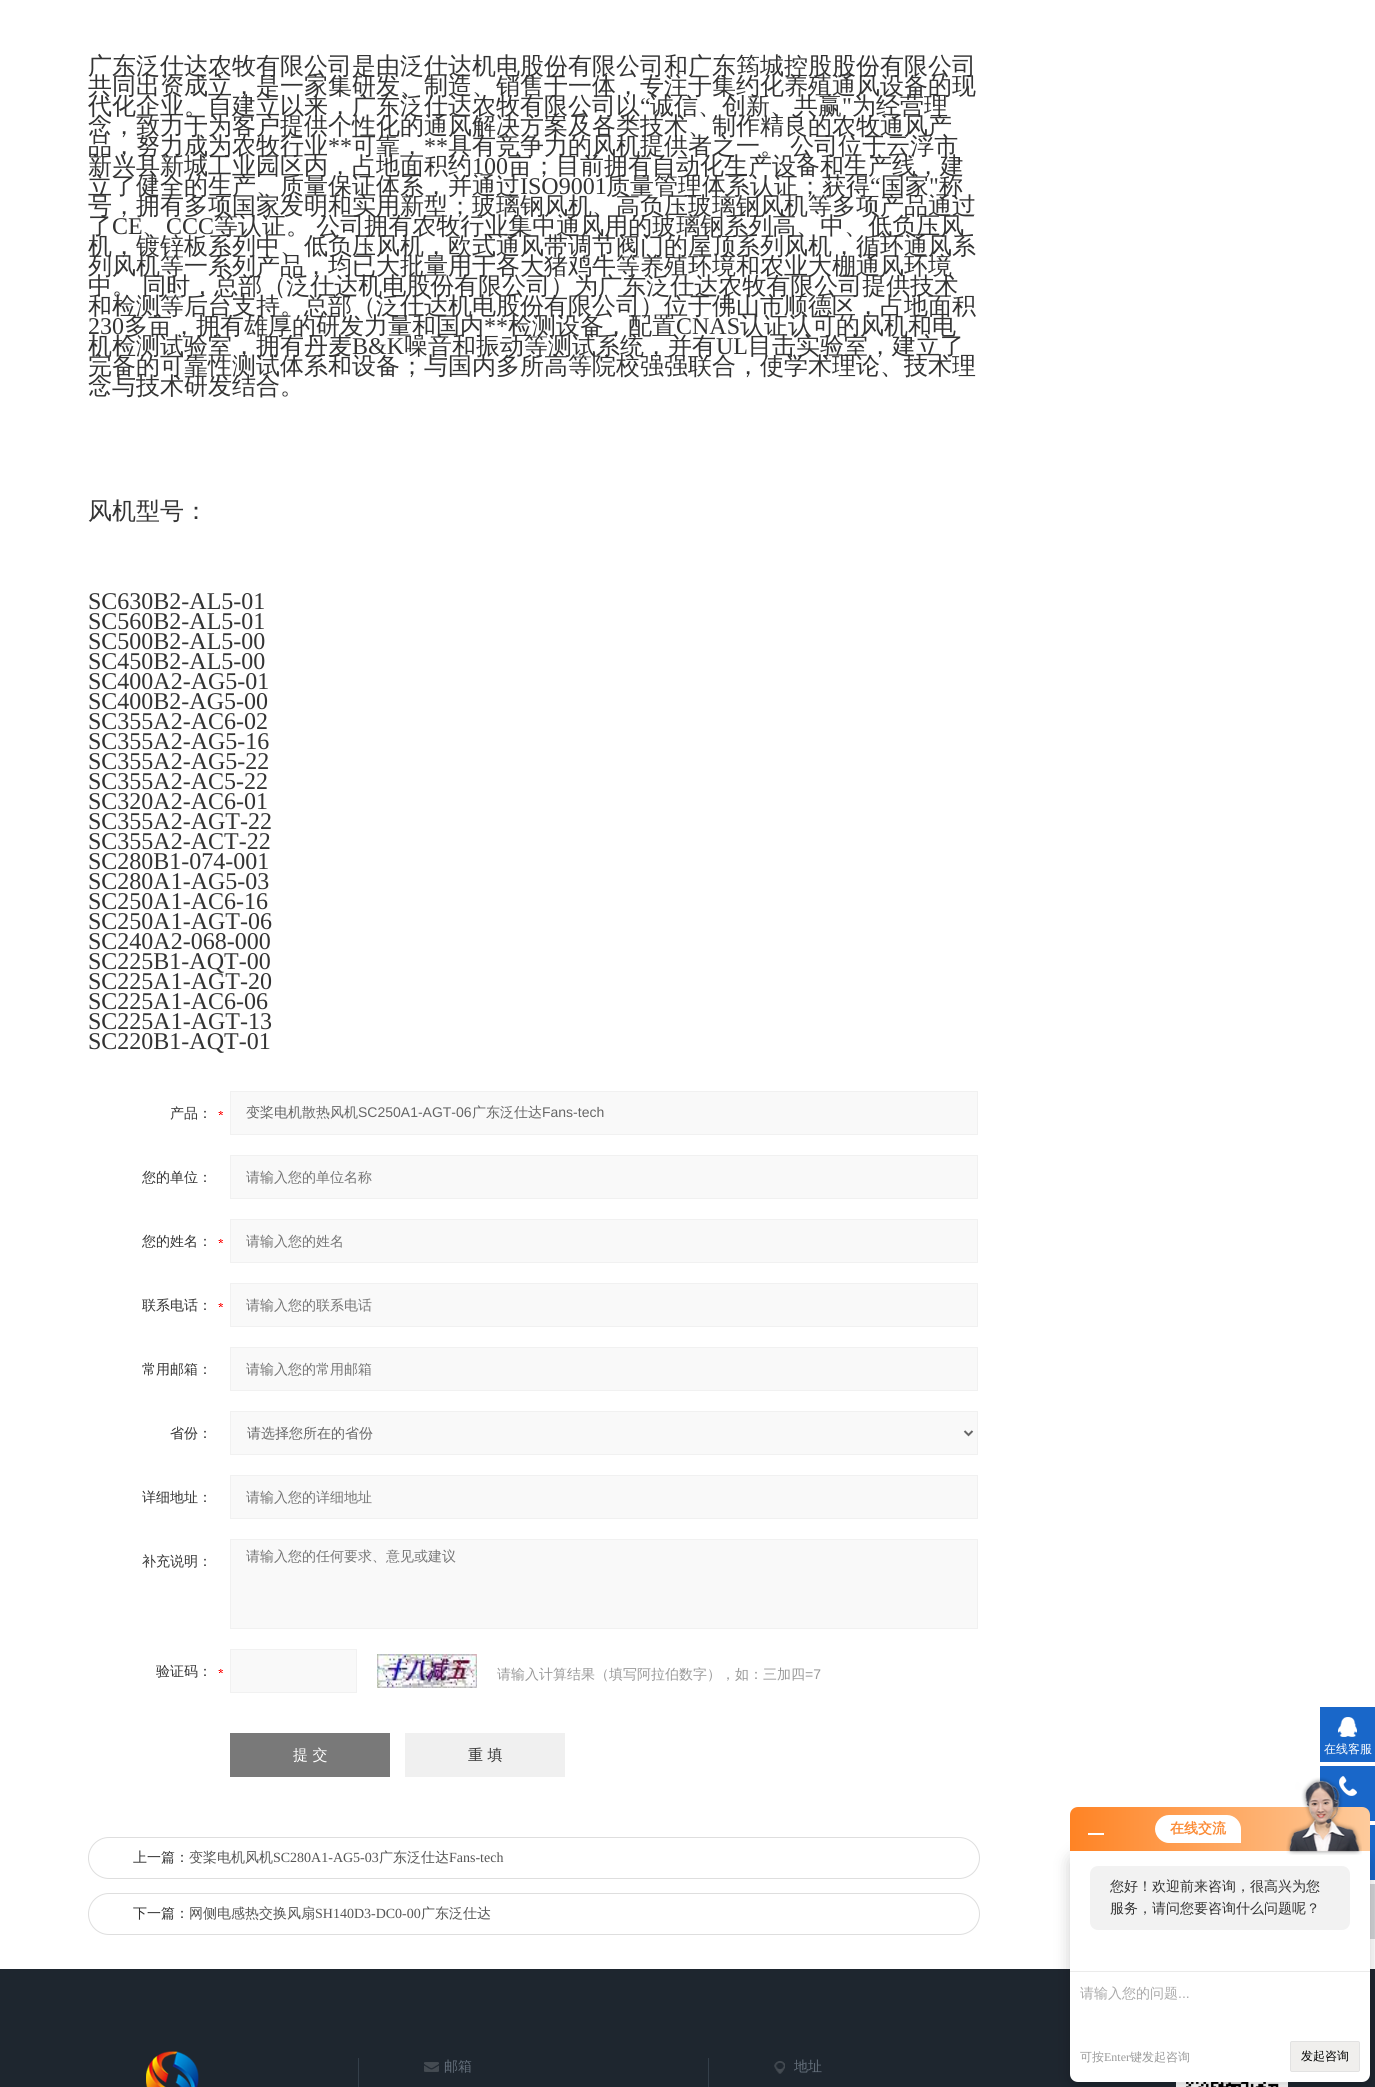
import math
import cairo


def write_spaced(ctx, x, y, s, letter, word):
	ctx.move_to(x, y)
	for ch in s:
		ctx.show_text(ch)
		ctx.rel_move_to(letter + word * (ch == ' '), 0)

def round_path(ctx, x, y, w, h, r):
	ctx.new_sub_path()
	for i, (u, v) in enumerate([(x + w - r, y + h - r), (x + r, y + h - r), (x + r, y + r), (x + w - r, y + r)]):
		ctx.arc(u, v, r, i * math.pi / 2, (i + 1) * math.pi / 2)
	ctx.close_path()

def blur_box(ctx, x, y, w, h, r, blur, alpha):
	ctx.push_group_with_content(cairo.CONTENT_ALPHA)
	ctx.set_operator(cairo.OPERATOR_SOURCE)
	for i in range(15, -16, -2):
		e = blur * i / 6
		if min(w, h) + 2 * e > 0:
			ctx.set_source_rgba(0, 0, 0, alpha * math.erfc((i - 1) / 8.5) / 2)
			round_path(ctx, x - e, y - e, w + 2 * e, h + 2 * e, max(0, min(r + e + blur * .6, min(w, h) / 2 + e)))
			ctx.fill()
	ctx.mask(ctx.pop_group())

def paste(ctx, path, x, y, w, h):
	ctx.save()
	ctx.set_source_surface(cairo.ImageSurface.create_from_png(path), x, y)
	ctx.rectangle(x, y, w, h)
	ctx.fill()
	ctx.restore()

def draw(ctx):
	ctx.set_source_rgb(1, 1, 1)
	ctx.paint()
	ctx.select_font_face('WenQuanYi Zen Hei Medium')
	ctx.set_font_size(24)
	ctx.set_source_rgb(0.2, 0.2, 0.2)
	for x, y, s in [
		(88, 74, '广东泛仕达农牧有限公司是由泛仕达机电股份有限公司和广东筠城控股股份有限公司'),
		(88, 94, '共同出资成立，是一家集研发、制造、销售于一体，专注于集约化养殖通风设备的现'),
		(88, 114, '代化企业。自建立以来，广东泛仕达农牧有限公司以'),
	]:
		ctx.move_to(x, y)
		ctx.show_text(s)
	ctx.select_font_face('Liberation Serif')
	ctx.move_to(640, 114)
	ctx.show_text('“')
	ctx.select_font_face('WenQuanYi Zen Hei Medium')
	ctx.move_to(650, 114)
	ctx.show_text('诚信、创新、共赢')
	ctx.select_font_face('Liberation Serif')
	ctx.move_to(842, 114)
	ctx.show_text('"')
	ctx.select_font_face('WenQuanYi Zen Hei Medium')
	for x, y, s in [
		(852, 114, '为经营理'),
		(88, 134, '念，致力于为客户提供个性化的通风解决方案及各类技术、制作精良的农牧通风产'),
		(88, 154, '品，努力成为农牧行业'),
	]:
		ctx.move_to(x, y)
		ctx.show_text(s)
	ctx.select_font_face('Liberation Serif')
	ctx.move_to(328, 154)
	ctx.show_text('**')
	ctx.select_font_face('WenQuanYi Zen Hei Medium')
	ctx.move_to(352, 154)
	ctx.show_text('可靠，')
	ctx.select_font_face('Liberation Serif')
	ctx.move_to(424, 154)
	ctx.show_text('**')
	ctx.select_font_face('WenQuanYi Zen Hei Medium')
	write_spaced(ctx, 448, 154, '具有竞争力的风机提供者之一。 公司位于云浮市', 0, -1)
	ctx.move_to(88, 174)
	ctx.show_text('新兴县新城工业园区内，占地面积约')
	ctx.select_font_face('Liberation Serif')
	ctx.move_to(472, 174)
	ctx.show_text('100')
	ctx.select_font_face('WenQuanYi Zen Hei Medium')
	ctx.move_to(508, 174)
	ctx.show_text('亩；目前拥有自动化生产设备和生产线，建')
	ctx.move_to(88, 194)
	ctx.show_text('立了健全的生产、质量保证体系，并通过')
	ctx.select_font_face('Liberation Serif')
	ctx.move_to(520, 194)
	ctx.show_text('ISO9001')
	ctx.select_font_face('WenQuanYi Zen Hei Medium')
	ctx.move_to(606, 194)
	ctx.show_text('质量管理体系认证；获得')
	ctx.select_font_face('Liberation Serif')
	ctx.move_to(870, 194)
	ctx.show_text('“')
	ctx.select_font_face('WenQuanYi Zen Hei Medium')
	ctx.move_to(881, 194)
	ctx.show_text('国家')
	ctx.select_font_face('Liberation Serif')
	ctx.move_to(929, 194)
	ctx.show_text('"')
	ctx.select_font_face('WenQuanYi Zen Hei Medium')
	for x, y, s in [
		(939, 194, '称'),
		(88, 214, '号，拥有多项国家发明和实用新型；玻璃钢风机、高负压玻璃钢风机等多项产品通过'),
		(88, 234, '了'),
	]:
		ctx.move_to(x, y)
		ctx.show_text(s)
	ctx.select_font_face('Liberation Serif')
	ctx.move_to(112, 234)
	ctx.show_text('CE')
	ctx.select_font_face('WenQuanYi Zen Hei Medium')
	ctx.move_to(142, 234)
	ctx.show_text('、')
	ctx.select_font_face('Liberation Serif')
	ctx.move_to(166, 234)
	ctx.show_text('CCC')
	ctx.select_font_face('WenQuanYi Zen Hei Medium')
	write_spaced(ctx, 214, 234, '等认证。 公司拥有农牧行业集中通风用的玻璃钢系列高、中、低负压风', 0, -1)
	ctx.move_to(88, 254)
	ctx.show_text('机，镀锌板系列中、低负压风机，欧式通风带调节阀门的屋顶系列风机，循环通风系')
	ctx.move_to(88, 274)
	ctx.show_text('列风机等一系列产品，均已大批量用于各大猪鸡牛等养殖环境和农业大棚通风环境')
	write_spaced(ctx, 88, 294, '中。 同时，总部（泛仕达机电股份有限公司）为广东泛仕达农牧有限公司提供技术', 0, -1)
	ctx.move_to(88, 314)
	ctx.show_text('和检测等后台支持。总部（泛仕达机电股份有限公司）位于佛山市顺德区，占地面积')
	ctx.select_font_face('Liberation Serif')
	ctx.move_to(88, 334)
	ctx.show_text('230')
	ctx.select_font_face('WenQuanYi Zen Hei Medium')
	ctx.move_to(124, 334)
	ctx.show_text('多亩，拥有雄厚的研发力量和国内')
	ctx.select_font_face('Liberation Serif')
	ctx.move_to(484, 334)
	ctx.show_text('**')
	ctx.select_font_face('WenQuanYi Zen Hei Medium')
	ctx.move_to(508, 334)
	ctx.show_text('检测设备，配置')
	ctx.select_font_face('Liberation Serif')
	ctx.move_to(676, 334)
	ctx.show_text('CNAS')
	ctx.select_font_face('WenQuanYi Zen Hei Medium')
	ctx.move_to(740, 334)
	ctx.show_text('认证认可的风机和电')
	ctx.move_to(88, 354)
	ctx.show_text('机检测试验室，拥有丹麦')
	ctx.select_font_face('Liberation Serif')
	ctx.move_to(352, 354)
	ctx.show_text('B&K')
	ctx.select_font_face('WenQuanYi Zen Hei Medium')
	ctx.move_to(404, 354)
	ctx.show_text('噪音和振动等测试系统，并有')
	ctx.select_font_face('Liberation Serif')
	ctx.move_to(716, 354)
	ctx.show_text('UL')
	ctx.select_font_face('WenQuanYi Zen Hei Medium')
	for x, y, s in [
		(748, 354, '目击实验室，建立了'),
		(88, 374, '完备的可靠性测试体系和设备；与国内多所高等院校强强联合，使学术理论、技术理'),
		(88, 394, '念与技术研发结合。'),
		(88, 519, '风机型号：'),
	]:
		ctx.move_to(x, y)
		ctx.show_text(s)
	ctx.select_font_face('Liberation Serif')
	for x, y, s in [
		(88, 609, 'SC630B2-AL5-01'),
		(88, 629, 'SC560B2-AL5-01'),
		(88, 649, 'SC500B2-AL5-00'),
		(88, 669, 'SC450B2-AL5-00'),
		(88, 689, 'SC400A2-AG5-01'),
		(88, 709, 'SC400B2-AG5-00'),
		(88, 729, 'SC355A2-AC6-02'),
		(88, 749, 'SC355A2-AG5-16'),
		(88, 769, 'SC355A2-AG5-22'),
		(88, 789, 'SC355A2-AC5-22'),
		(88, 809, 'SC320A2-AC6-01'),
		(88, 829, 'SC355A2-AGT-22'),
		(88, 849, 'SC355A2-ACT-22'),
		(88, 869, 'SC280B1-074-001'),
		(88, 889, 'SC280A1-AG5-03'),
		(88, 909, 'SC250A1-AC6-16'),
		(88, 929, 'SC250A1-AGT-06'),
		(88, 949, 'SC240A2-068-000'),
		(88, 969, 'SC225B1-AQT-00'),
		(88, 989, 'SC225A1-AGT-20'),
		(88, 1009, 'SC225A1-AC6-06'),
		(88, 1029, 'SC225A1-AGT-13'),
		(88, 1049, 'SC220B1-AQT-01'),
	]:
		ctx.move_to(x, y)
		ctx.show_text(s)
	paste(ctx, 'media/1.png', 218, 1111, 5, 4)
	ctx.select_font_face('WenQuanYi Zen Hei Medium')
	ctx.set_font_size(14)
	ctx.move_to(170, 1118)
	ctx.show_text('产品：')
	ctx.set_source_rgb(0.973, 0.973, 0.973)
	ctx.rectangle(230.5, 1091.5, 747, 43)
	ctx.fill_preserve()
	ctx.set_source_rgb(0.945, 0.945, 0.945)
	ctx.set_line_width(1)
	ctx.stroke()
	ctx.set_source_rgb(0.4, 0.4, 0.4)
	ctx.move_to(246, 1117)
	ctx.show_text('变桨电机散热风机')
	ctx.select_font_face('Liberation Sans')
	ctx.move_to(358, 1117)
	ctx.show_text('SC250A1-AGT-06')
	ctx.select_font_face('WenQuanYi Zen Hei Medium')
	ctx.move_to(472, 1117)
	ctx.show_text('广东泛仕达')
	ctx.select_font_face('Liberation Sans')
	ctx.move_to(542, 1117)
	ctx.show_text('Fans-tech')
	ctx.select_font_face('WenQuanYi Zen Hei Medium')
	ctx.set_source_rgb(0.2, 0.2, 0.2)
	ctx.move_to(142, 1182)
	ctx.show_text('您的单位：')
	ctx.set_source_rgb(0.973, 0.973, 0.973)
	ctx.rectangle(230.5, 1155.5, 747, 43)
	ctx.fill_preserve()
	ctx.set_source_rgb(0.945, 0.945, 0.945)
	ctx.stroke()
	ctx.set_source_rgb(0.459, 0.459, 0.459)
	ctx.move_to(246, 1182)
	ctx.show_text('请输入您的单位名称')
	paste(ctx, 'media/1.png', 218, 1239, 5, 4)
	ctx.set_source_rgb(0.2, 0.2, 0.2)
	ctx.move_to(142, 1246)
	ctx.show_text('您的姓名：')
	ctx.set_source_rgb(0.973, 0.973, 0.973)
	ctx.rectangle(230.5, 1219.5, 747, 43)
	ctx.fill_preserve()
	ctx.set_source_rgb(0.945, 0.945, 0.945)
	ctx.stroke()
	ctx.set_source_rgb(0.459, 0.459, 0.459)
	ctx.move_to(246, 1246)
	ctx.show_text('请输入您的姓名')
	paste(ctx, 'media/1.png', 218, 1303, 5, 4)
	ctx.set_source_rgb(0.2, 0.2, 0.2)
	ctx.move_to(142, 1310)
	ctx.show_text('联系电话：')
	ctx.set_source_rgb(0.973, 0.973, 0.973)
	ctx.rectangle(230.5, 1283.5, 747, 43)
	ctx.fill_preserve()
	ctx.set_source_rgb(0.945, 0.945, 0.945)
	ctx.stroke()
	ctx.set_source_rgb(0.459, 0.459, 0.459)
	ctx.move_to(246, 1310)
	ctx.show_text('请输入您的联系电话')
	ctx.set_source_rgb(0.2, 0.2, 0.2)
	ctx.move_to(142, 1374)
	ctx.show_text('常用邮箱：')
	ctx.set_source_rgb(0.973, 0.973, 0.973)
	ctx.rectangle(230.5, 1347.5, 747, 43)
	ctx.fill_preserve()
	ctx.set_source_rgb(0.945, 0.945, 0.945)
	ctx.stroke()
	ctx.set_source_rgb(0.459, 0.459, 0.459)
	ctx.move_to(246, 1374)
	ctx.show_text('请输入您的常用邮箱')
	ctx.set_source_rgb(0.2, 0.2, 0.2)
	ctx.move_to(170, 1438)
	ctx.show_text('省份：')
	ctx.set_source_rgb(0.973, 0.973, 0.973)
	ctx.rectangle(230.5, 1411.5, 747, 43)
	ctx.fill_preserve()
	ctx.set_source_rgb(0.945, 0.945, 0.945)
	ctx.stroke()
	ctx.new_path()
	ctx.move_to(964.5, 1431)
	ctx.line_to(968.5, 1435)
	ctx.line_to(972.5, 1431)
	ctx.set_source_rgb(0.4, 0.4, 0.4)
	ctx.set_line_width(2)
	ctx.stroke()
	ctx.move_to(247, 1438)
	ctx.show_text('请选择您所在的省份')
	ctx.set_source_rgb(0.2, 0.2, 0.2)
	ctx.move_to(142, 1502)
	ctx.show_text('详细地址：')
	ctx.set_source_rgb(0.973, 0.973, 0.973)
	ctx.rectangle(230.5, 1475.5, 747, 43)
	ctx.fill_preserve()
	ctx.set_source_rgb(0.945, 0.945, 0.945)
	ctx.set_line_width(1)
	ctx.stroke()
	ctx.set_source_rgb(0.459, 0.459, 0.459)
	ctx.move_to(246, 1502)
	ctx.show_text('请输入您的详细地址')
	ctx.set_source_rgb(0.2, 0.2, 0.2)
	ctx.move_to(142, 1566)
	ctx.show_text('补充说明：')
	ctx.set_source_rgb(0.973, 0.973, 0.973)
	ctx.rectangle(230.5, 1539.5, 747, 89)
	ctx.fill_preserve()
	ctx.set_source_rgb(0.945, 0.945, 0.945)
	ctx.stroke()
	ctx.set_source_rgb(0.459, 0.459, 0.459)
	ctx.move_to(246, 1561)
	ctx.show_text('请输入您的任何要求、意见或建议')
	paste(ctx, 'media/1.png', 218, 1669, 5, 4)
	ctx.set_source_rgb(0.2, 0.2, 0.2)
	ctx.move_to(156, 1676)
	ctx.show_text('验证码：')
	ctx.set_source_rgb(0.973, 0.973, 0.973)
	ctx.rectangle(230.5, 1649.5, 126, 43)
	ctx.fill_preserve()
	ctx.set_source_rgb(0.945, 0.945, 0.945)
	ctx.stroke()
	paste(ctx, 'media/2.png', 377, 1654, 100, 34)
	ctx.set_source_rgb(0.6, 0.6, 0.6)
	ctx.move_to(497, 1679)
	ctx.show_text('请输入计算结果（填写阿拉伯数字），如：三加四')
	ctx.select_font_face('Liberation Sans')
	ctx.move_to(805, 1679)
	ctx.show_text('=7')
	ctx.set_source_rgb(0.475, 0.475, 0.475)
	ctx.rectangle(230, 1733, 160, 44)
	ctx.fill()
	ctx.select_font_face('WenQuanYi Zen Hei Medium')
	ctx.set_font_size(15)
	ctx.set_source_rgb(1, 1, 1)
	ctx.move_to(293, 1760)
	ctx.show_text('提 交')
	ctx.set_source_rgb(0.941, 0.941, 0.941)
	ctx.rectangle(405, 1733, 160, 44)
	ctx.fill()
	ctx.set_source_rgb(0.2, 0.2, 0.2)
	ctx.move_to(468, 1760)
	ctx.show_text('重 填')
	round_path(ctx, 88.5, 1837.5, 891, 41, 20.5)
	ctx.set_source_rgb(0.871, 0.871, 0.871)
	ctx.stroke()
	ctx.set_font_size(14)
	ctx.set_source_rgb(0.2, 0.2, 0.2)
	ctx.move_to(133, 1862)
	ctx.show_text('上一篇：')
	ctx.set_source_rgb(0.333, 0.333, 0.333)
	ctx.move_to(189, 1862)
	ctx.show_text('变桨电机风机')
	ctx.select_font_face('Liberation Serif')
	ctx.move_to(273, 1862)
	ctx.show_text('SC280A1-AG5-03')
	ctx.select_font_face('WenQuanYi Zen Hei Medium')
	ctx.move_to(379, 1862)
	ctx.show_text('广东泛仕达')
	ctx.select_font_face('Liberation Serif')
	ctx.move_to(449, 1862)
	ctx.show_text('Fans-tech')
	round_path(ctx, 88.5, 1893.5, 891, 41, 20.5)
	ctx.set_source_rgb(0.871, 0.871, 0.871)
	ctx.stroke()
	ctx.select_font_face('WenQuanYi Zen Hei Medium')
	ctx.set_source_rgb(0.2, 0.2, 0.2)
	ctx.move_to(133, 1918)
	ctx.show_text('下一篇：')
	ctx.set_source_rgb(0.333, 0.333, 0.333)
	ctx.move_to(189, 1918)
	ctx.show_text('网侧电感热交换风扇')
	ctx.select_font_face('Liberation Serif')
	ctx.move_to(315, 1918)
	ctx.show_text('SH140D3-DC0-00')
	ctx.select_font_face('WenQuanYi Zen Hei Medium')
	ctx.move_to(421, 1918)
	ctx.show_text('广东泛仕达')
	ctx.set_source_rgb(0.098, 0.404, 0.788)
	ctx.rectangle(1320, 1707, 55, 55)
	ctx.fill()
	paste(ctx, 'media/3.png', 1338, 1717, 19, 20)
	ctx.set_font_size(12)
	ctx.set_source_rgb(1, 1, 1)
	ctx.move_to(1324, 1753)
	ctx.show_text('在线客服')
	ctx.set_source_rgb(0.098, 0.404, 0.788)
	ctx.rectangle(1320, 1766, 55, 55)
	ctx.fill()
	paste(ctx, 'media/4.png', 1339, 1776, 18, 20)
	ctx.rectangle(1370, 1825, 5, 55)
	ctx.fill()
	ctx.set_source_rgb(0.824, 0.827, 0.839)
	ctx.rectangle(1370, 1884, 5, 55)
	ctx.fill()
	ctx.set_source_rgb(0.118, 0.149, 0.184)
	ctx.rectangle(0, 1969, 1375, 118)
	ctx.fill()
	ctx.set_source_rgb(1, 1, 1)
	ctx.rectangle(1176, 2082, 112, 5)
	ctx.fill()
	paste(ctx, 'media/9.png', 1185, 2082, 94, 5)
	ctx.set_source_rgb(0, 0, 0)
	blur_box(ctx, 1070, 1855, 300, 231, 8, 8, 0.2)
	gradient = cairo.LinearGradient(1070, 1829, 1370, 1829)
	gradient.add_color_stop_rgba(0, 1, 0.514, 0.141, 1)
	gradient.add_color_stop_rgba(1, 0.996, 0.796, 0.612, 1)
	ctx.set_source(gradient)
	ctx.new_path()
	ctx.move_to(1078, 1807)
	ctx.line_to(1362, 1807)
	ctx.curve_to(1366.5, 1807, 1370, 1810.5, 1370, 1815)
	ctx.line_to(1370, 1851)
	ctx.line_to(1070, 1851)
	ctx.line_to(1070, 1815)
	ctx.curve_to(1070, 1810.5, 1073.5, 1807, 1078, 1807)
	ctx.close_path()
	ctx.fill()
	ctx.set_source_rgb(1, 1, 1)
	ctx.rectangle(1088, 1833, 16, 2)
	ctx.fill()
	ctx.new_path()
	ctx.move_to(1169, 1815)
	ctx.line_to(1227, 1815)
	ctx.curve_to(1234.5, 1815, 1241, 1821.5, 1241, 1829)
	ctx.line_to(1241, 1843)
	ctx.line_to(1169, 1843)
	ctx.curve_to(1161.5, 1843, 1155, 1836.5, 1155, 1829)
	ctx.curve_to(1155, 1821.5, 1161.5, 1815, 1169, 1815)
	ctx.close_path()
	ctx.fill()
	ctx.select_font_face('WenQuanYi Zen Hei', cairo.FONT_SLANT_NORMAL, cairo.FONT_WEIGHT_BOLD)
	ctx.set_font_size(14)
	ctx.set_source_rgb(0.984, 0.545, 0.212)
	ctx.move_to(1170, 1833)
	ctx.show_text('在线交流')
	ctx.set_source_rgb(1, 1, 1)
	ctx.new_path()
	ctx.move_to(1070, 1851)
	ctx.line_to(1370, 1851)
	ctx.line_to(1370, 2074)
	ctx.curve_to(1370, 2078.5, 1366.5, 2082, 1362, 2082)
	ctx.line_to(1078, 2082)
	ctx.curve_to(1073.5, 2082, 1070, 2078.5, 1070, 2074)
	ctx.close_path()
	ctx.fill()
	paste(ctx, 'media/5.png', 1286, 1777, 76, 78)
	ctx.set_source_rgb(0.949, 0.949, 0.949)
	round_path(ctx, 1090, 1866, 260, 64, 8)
	ctx.fill()
	ctx.select_font_face('WenQuanYi Zen Hei Medium')
	ctx.set_source_rgb(0.2, 0.2, 0.2)
	ctx.move_to(1110, 1891)
	ctx.show_text('您好！欢迎前来咨询，很高兴为您')
	ctx.move_to(1110, 1913)
	ctx.show_text('服务，请问您要咨询什么问题呢？')
	ctx.set_source_rgb(0.918, 0.918, 0.918)
	ctx.rectangle(1070, 1971, 300, 1)
	ctx.fill()
	ctx.set_source_rgb(0.667, 0.667, 0.667)
	ctx.move_to(1080, 1998)
	ctx.show_text('请输入您的问题')
	ctx.select_font_face('Liberation Sans')
	ctx.move_to(1178, 1998)
	ctx.show_text('...')
	ctx.select_font_face('WenQuanYi Zen Hei Medium')
	ctx.set_font_size(12)
	ctx.set_source_rgb(0.6, 0.6, 0.6)
	ctx.move_to(1080, 2061)
	ctx.show_text('可按')
	ctx.select_font_face('Liberation Serif')
	ctx.move_to(1104, 2061)
	ctx.show_text('Enter')
	ctx.select_font_face('WenQuanYi Zen Hei Medium')
	ctx.move_to(1130, 2061)
	ctx.show_text('键发起咨询')
	ctx.set_source_rgb(0.941, 0.937, 0.929)
	round_path(ctx, 1290.5, 2041.5, 69, 30, 1.5)
	ctx.fill_preserve()
	ctx.set_source_rgb(0.886, 0.886, 0.886)
	ctx.stroke()
	ctx.set_source_rgb(0, 0, 0)
	ctx.move_to(1301, 2060)
	ctx.show_text('发起咨询')
	paste(ctx, 'media/6.png', 146, 2051, 53, 36)
	ctx.set_source_rgb(0.204, 0.247, 0.29)
	ctx.rectangle(358, 2058, 1, 29)
	ctx.fill()
	paste(ctx, 'media/7.png', 424, 2062, 15, 10)
	ctx.set_font_size(14)
	ctx.set_source_rgb(0.392, 0.435, 0.482)
	ctx.move_to(444, 2071)
	ctx.show_text('邮箱')
	ctx.set_source_rgb(0.204, 0.247, 0.29)
	ctx.rectangle(708, 2058, 1, 29)
	ctx.fill()
	paste(ctx, 'media/8.png', 774, 2061, 11, 13)
	ctx.set_source_rgb(0.392, 0.435, 0.482)
	ctx.move_to(794, 2071)
	ctx.show_text('地址')


surface = cairo.ImageSurface(cairo.FORMAT_RGB24, 1375, 2087)
ctx = cairo.Context(surface)
options = cairo.FontOptions()
options.set_hint_metrics(cairo.HINT_METRICS_OFF)
options.set_hint_style(cairo.HINT_STYLE_NONE)
ctx.set_font_options(options)
ctx.set_miter_limit(4)
draw(ctx)
surface.write_to_png('image.png')
